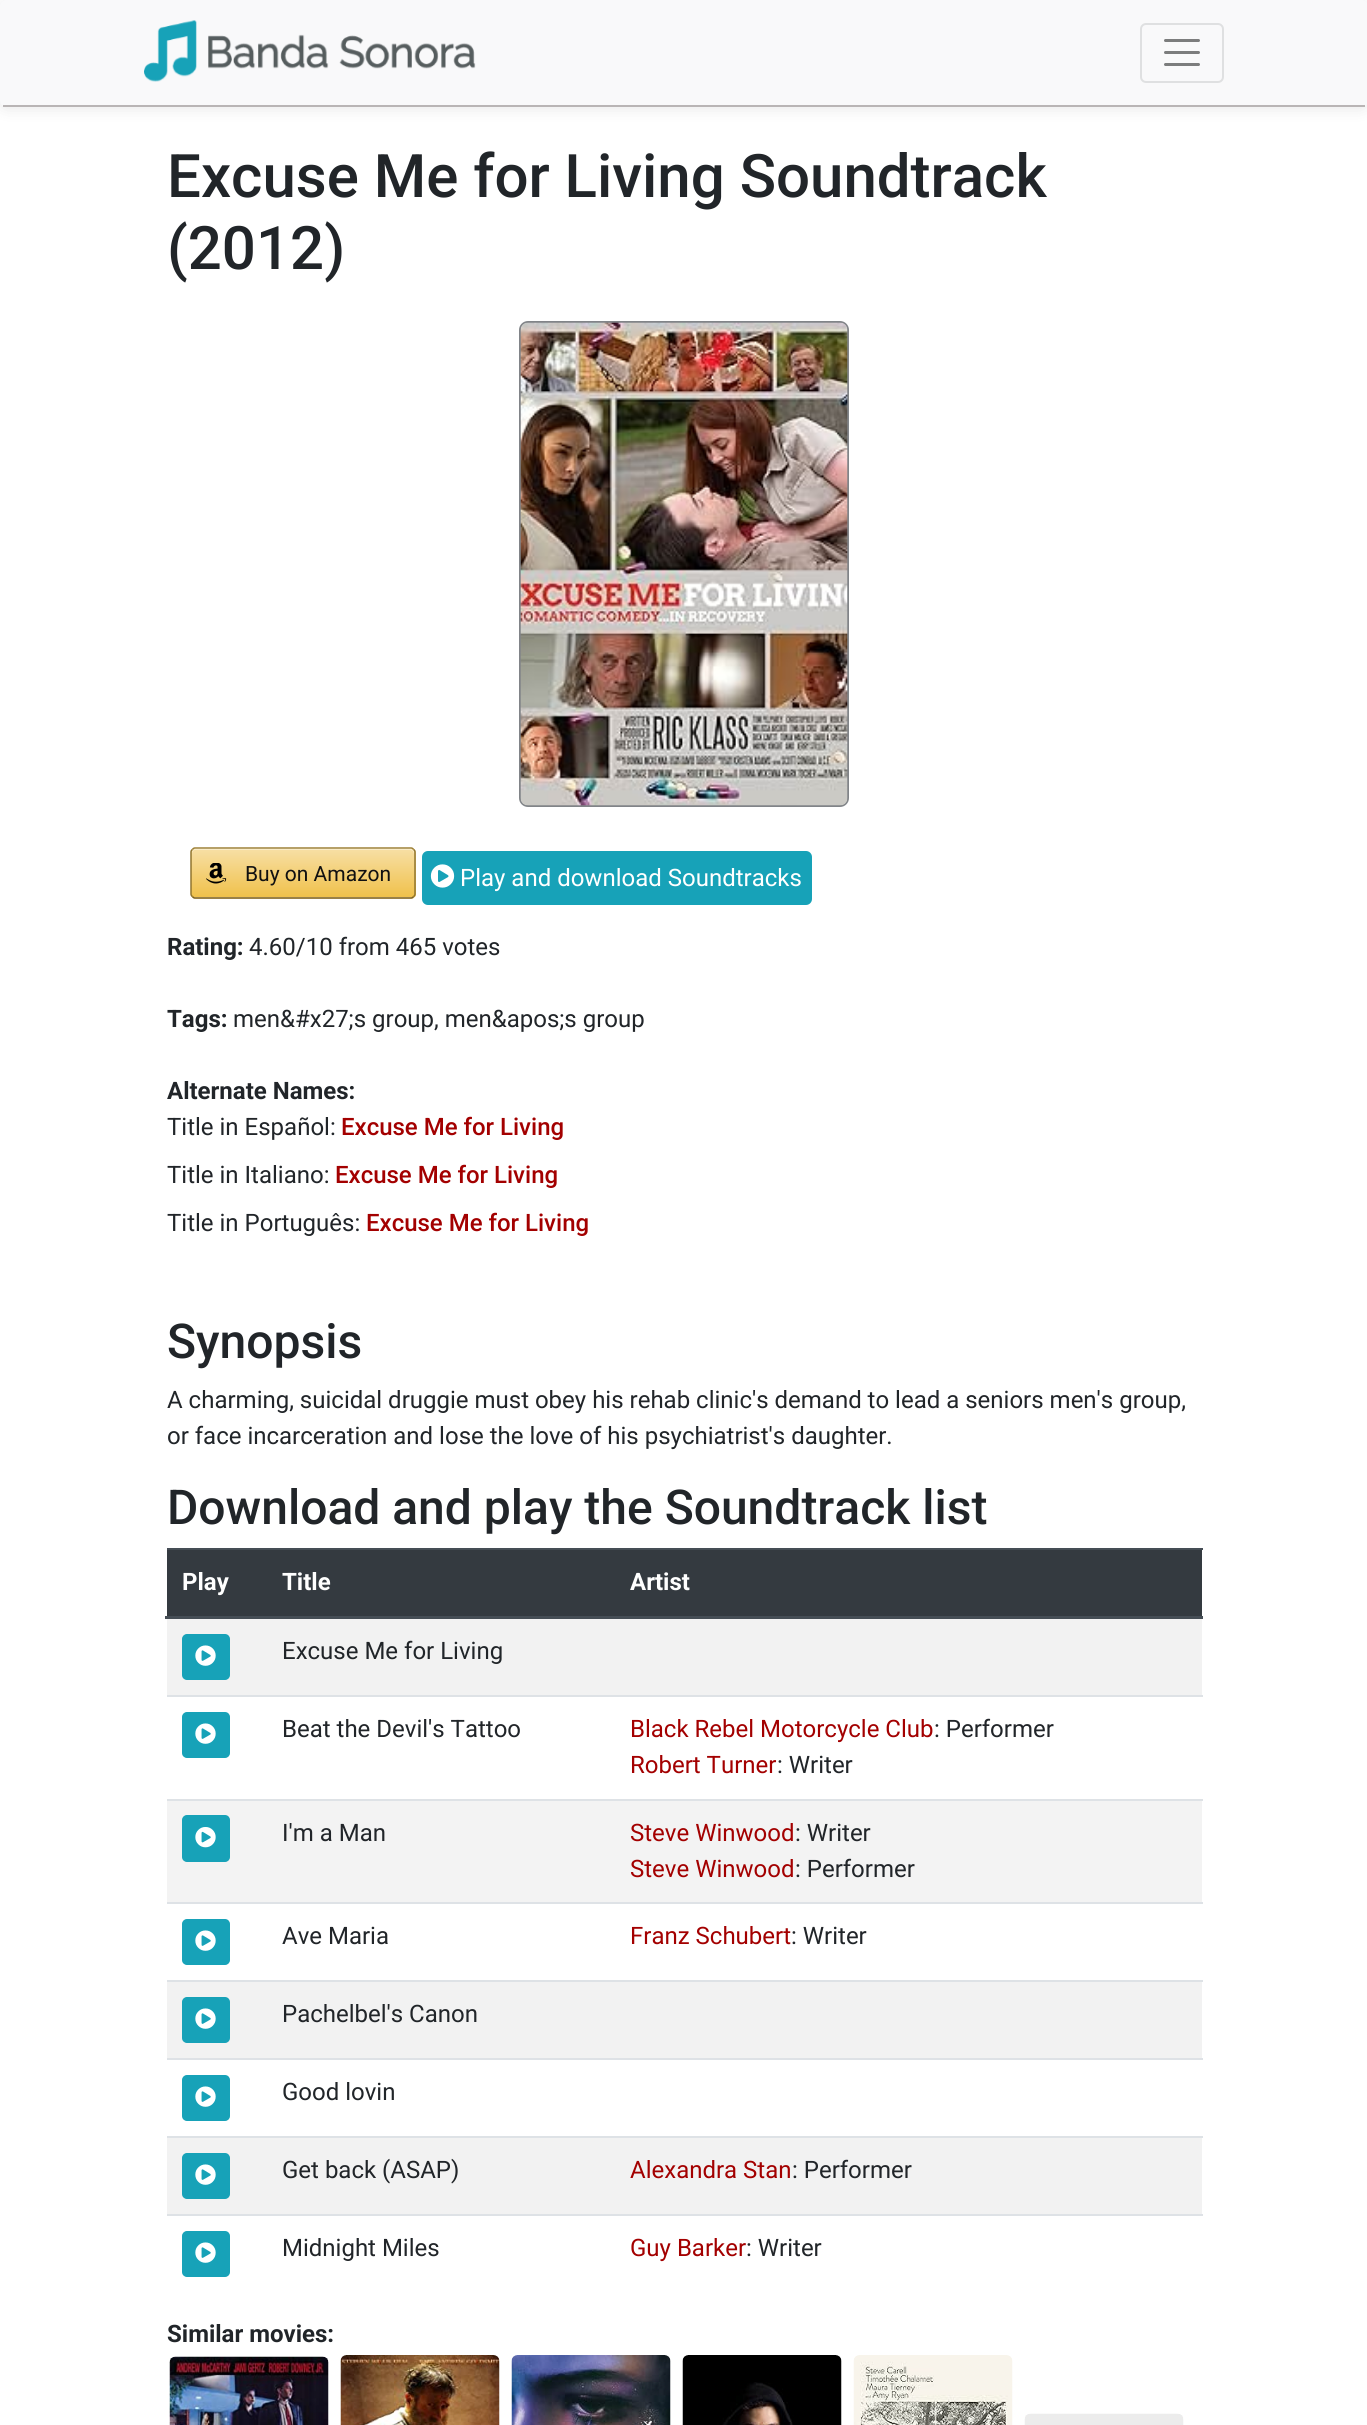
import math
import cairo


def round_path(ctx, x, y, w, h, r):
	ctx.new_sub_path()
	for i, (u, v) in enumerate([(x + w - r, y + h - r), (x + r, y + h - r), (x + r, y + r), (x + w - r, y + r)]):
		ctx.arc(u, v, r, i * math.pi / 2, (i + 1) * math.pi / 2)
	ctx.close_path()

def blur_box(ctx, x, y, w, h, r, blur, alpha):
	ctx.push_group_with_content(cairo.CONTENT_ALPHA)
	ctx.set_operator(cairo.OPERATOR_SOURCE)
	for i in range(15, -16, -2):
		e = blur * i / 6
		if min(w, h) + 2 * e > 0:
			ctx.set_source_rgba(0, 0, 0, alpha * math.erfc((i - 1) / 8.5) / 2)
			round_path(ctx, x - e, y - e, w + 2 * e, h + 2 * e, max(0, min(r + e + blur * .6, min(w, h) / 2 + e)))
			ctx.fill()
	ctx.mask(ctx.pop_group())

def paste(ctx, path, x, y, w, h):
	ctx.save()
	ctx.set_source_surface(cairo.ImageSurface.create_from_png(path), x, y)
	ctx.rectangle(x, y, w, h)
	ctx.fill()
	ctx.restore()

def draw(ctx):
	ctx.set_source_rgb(1, 1, 1)
	ctx.paint()
	ctx.set_source_rgb(0, 0, 0)
	blur_box(ctx, 0, 2, 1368, 106, 6, 7.5, 0.1)
	ctx.set_source_rgb(0.973, 0.976, 0.98)
	round_path(ctx, 0, 0, 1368, 107, 6)
	ctx.fill()
	ctx.set_source_rgb(0.725, 0.71, 0.71)
	ctx.rectangle(3, 105, 1362, 2)
	ctx.fill()
	paste(ctx, 'media/1.png', 144, 20, 332, 62)
	round_path(ctx, 1141, 24, 82, 58, 5)
	ctx.set_source_rgb(0.875, 0.878, 0.882)
	ctx.stroke()
	ctx.new_path()
	ctx.move_to(1165.5, 40.5)
	ctx.line_to(1198.5, 40.5)
	ctx.move_to(1165.5, 52.5)
	ctx.line_to(1198.5, 52.5)
	ctx.move_to(1165.5, 64.5)
	ctx.line_to(1198.5, 64.5)
	ctx.set_source_rgb(0.486, 0.49, 0.49)
	ctx.set_line_width(3)
	ctx.set_line_cap(cairo.LINE_CAP_ROUND)
	ctx.stroke()
	ctx.select_font_face('Roboto Medium')
	ctx.set_font_size(60)
	ctx.set_source_rgb(0.129, 0.145, 0.161)
	ctx.move_to(167, 197)
	ctx.show_text('Excuse Me for Living Soundtrack')
	ctx.move_to(167, 269)
	ctx.show_text('(2012)')
	round_path(ctx, 520, 322, 328, 484, 8)
	ctx.set_source_rgb(0.506, 0.518, 0.533)
	ctx.set_line_width(2)
	ctx.set_line_cap(cairo.LINE_CAP_BUTT)
	ctx.stroke()
	paste(ctx, 'media/2.png', 520, 322, 328, 484)
	ctx.save()
	round_path(ctx, 191, 848, 225, 51, 5)
	ctx.clip()
	gradient = cairo.LinearGradient(303, 849, 303, 897)
	gradient.add_color_stop_rgba(0, 0.969, 0.875, 0.647, 1)
	gradient.add_color_stop_rgba(1, 0.941, 0.757, 0.294, 1)
	ctx.set_source(gradient)
	ctx.rectangle(191, 849, 225, 48)
	ctx.fill()
	gradient = cairo.LinearGradient(303, 897, 303, 945)
	gradient.add_color_stop_rgba(0, 0.969, 0.875, 0.647, 1)
	gradient.add_color_stop_rgba(1, 0.941, 0.757, 0.294, 1)
	ctx.set_source(gradient)
	ctx.rectangle(191, 897, 225, 2)
	ctx.fill()
	ctx.restore()
	ctx.set_source_rgba(1, 1, 1, 0.4)
	ctx.new_path()
	ctx.move_to(195, 850)
	ctx.line_to(411, 850)
	ctx.line_to(413, 851)
	ctx.line_to(414, 854)
	ctx.line_to(414, 852)
	ctx.curve_to(414, 850, 413, 849, 411, 849)
	ctx.line_to(195, 849)
	ctx.curve_to(193, 849, 192, 850, 192, 852)
	ctx.line_to(192, 854)
	ctx.curve_to(192, 852, 193, 850, 195, 850)
	ctx.close_path()
	ctx.fill()
	ctx.new_path()
	ctx.move_to(192.5, 849.5)
	ctx.curve_to(193, 848.5, 194, 848, 195, 848)
	ctx.line_to(411, 848)
	ctx.curve_to(412, 848, 413, 848.5, 413.5, 849.5)
	ctx.set_source_rgb(0.612, 0.494, 0.192)
	ctx.set_line_width(1.5)
	ctx.stroke()
	ctx.new_path()
	ctx.move_to(413.5, 849.5)
	ctx.curve_to(414.5, 850, 415, 851, 415, 852)
	ctx.line_to(415, 894)
	ctx.curve_to(415, 895, 414.5, 896, 413.5, 896.5)
	ctx.set_source_rgb(0.565, 0.455, 0.176)
	ctx.stroke()
	ctx.new_path()
	ctx.move_to(413.5, 896.5)
	ctx.curve_to(413, 897.5, 412, 898, 411, 898)
	ctx.line_to(195, 898)
	ctx.curve_to(194, 898, 193, 897.5, 192.5, 896.5)
	ctx.set_source_rgb(0.471, 0.376, 0.145)
	ctx.stroke()
	ctx.new_path()
	ctx.move_to(192.5, 896.5)
	ctx.curve_to(191.5, 896, 191, 895, 191, 894)
	ctx.line_to(191, 852)
	ctx.curve_to(191, 851, 191.5, 850, 192.5, 849.5)
	ctx.set_source_rgb(0.565, 0.455, 0.176)
	ctx.stroke()
	paste(ctx, 'media/3.png', 206, 863, 21, 21)
	ctx.select_font_face('Roboto')
	ctx.set_font_size(21)
	ctx.set_source_rgb(0.067, 0.067, 0.067)
	ctx.move_to(245, 881)
	ctx.show_text('Buy on Amazon')
	ctx.set_source_rgb(0.09, 0.635, 0.722)
	round_path(ctx, 423, 852, 388, 52, 5)
	ctx.fill_preserve()
	ctx.set_line_width(2)
	ctx.stroke()
	paste(ctx, 'media/4.png', 430, 864, 25, 24)
	ctx.set_font_size(24)
	ctx.set_source_rgb(1, 1, 1)
	ctx.move_to(460, 886)
	ctx.show_text('Play and download Soundtracks')
	ctx.select_font_face('Roboto', cairo.FONT_SLANT_NORMAL, cairo.FONT_WEIGHT_BOLD)
	ctx.set_source_rgb(0.129, 0.145, 0.161)
	ctx.move_to(167, 955)
	ctx.show_text('Rating:')
	ctx.select_font_face('Roboto')
	ctx.move_to(249, 955)
	ctx.show_text('4.60/10 from 465 votes')
	ctx.select_font_face('Roboto', cairo.FONT_SLANT_NORMAL, cairo.FONT_WEIGHT_BOLD)
	ctx.move_to(167, 1027)
	ctx.show_text('Tags:')
	ctx.select_font_face('Roboto')
	ctx.move_to(233, 1027)
	ctx.show_text('men&#x27;s group, men&apos;s group')
	ctx.select_font_face('Roboto', cairo.FONT_SLANT_NORMAL, cairo.FONT_WEIGHT_BOLD)
	ctx.move_to(167, 1099)
	ctx.show_text('Alternate Names:')
	ctx.select_font_face('Roboto')
	ctx.move_to(167, 1135)
	ctx.show_text('Title in Español:')
	ctx.select_font_face('Roboto Medium')
	ctx.set_source_rgb(0.639, 0, 0)
	ctx.move_to(341, 1135)
	ctx.show_text('Excuse Me for Living')
	ctx.select_font_face('Roboto')
	ctx.set_source_rgb(0.129, 0.145, 0.161)
	ctx.move_to(167, 1183)
	ctx.show_text('Title in Italiano:')
	ctx.select_font_face('Roboto Medium')
	ctx.set_source_rgb(0.639, 0, 0)
	ctx.move_to(335, 1183)
	ctx.show_text('Excuse Me for Living')
	ctx.select_font_face('Roboto')
	ctx.set_source_rgb(0.129, 0.145, 0.161)
	ctx.move_to(167, 1231)
	ctx.show_text('Title in Português:')
	ctx.select_font_face('Roboto Medium')
	ctx.set_source_rgb(0.639, 0, 0)
	ctx.move_to(366, 1231)
	ctx.show_text('Excuse Me for Living')
	ctx.set_font_size(48)
	ctx.set_source_rgb(0.129, 0.145, 0.161)
	ctx.move_to(167, 1358)
	ctx.show_text('Synopsis')
	ctx.select_font_face('Roboto')
	ctx.set_font_size(24)
	ctx.move_to(167, 1408)
	ctx.show_text('A charming, suicidal druggie must obey his rehab clinic\'s demand to lead a seniors men\'s group,')
	ctx.move_to(167, 1444)
	ctx.show_text('or face incarceration and lose the love of his psychiatrist\'s daughter.')
	ctx.select_font_face('Roboto Medium')
	ctx.set_font_size(48)
	ctx.move_to(167, 1524)
	ctx.show_text('Download and play the Soundtrack list')
	ctx.set_source_rgb(0.204, 0.227, 0.251)
	ctx.rectangle(167, 1550, 1035, 66)
	ctx.fill()
	ctx.select_font_face('Roboto', cairo.FONT_SLANT_NORMAL, cairo.FONT_WEIGHT_BOLD)
	ctx.set_font_size(24)
	ctx.set_source_rgb(1, 1, 1)
	ctx.move_to(182, 1590)
	ctx.show_text('Play')
	ctx.move_to(282, 1590)
	ctx.show_text('Title')
	ctx.set_source_rgb(0.271, 0.302, 0.333)
	ctx.rectangle(167, 1548, 1036, 2)
	ctx.fill()
	ctx.rectangle(165, 1616, 1038, 3)
	ctx.fill()
	ctx.set_source_rgb(1, 1, 1)
	ctx.move_to(630, 1590)
	ctx.show_text('Artist')
	ctx.set_source_rgb(0.949, 0.949, 0.949)
	ctx.rectangle(167, 1619, 1035, 76)
	ctx.fill()
	ctx.set_source_rgb(0.09, 0.635, 0.722)
	round_path(ctx, 183, 1635, 46, 44, 4)
	ctx.fill_preserve()
	ctx.stroke()
	paste(ctx, 'media/5.png', 195, 1645, 21, 21)
	ctx.select_font_face('Roboto')
	ctx.set_source_rgb(0.129, 0.145, 0.161)
	ctx.move_to(282, 1659)
	ctx.show_text('Excuse Me for Living')
	ctx.set_source_rgb(0.09, 0.635, 0.722)
	round_path(ctx, 183, 1713, 46, 44, 4)
	ctx.fill_preserve()
	ctx.stroke()
	paste(ctx, 'media/5.png', 195, 1723, 21, 21)
	ctx.set_source_rgb(0.129, 0.145, 0.161)
	ctx.move_to(282, 1737)
	ctx.show_text('Beat the Devil\'s Tattoo')
	ctx.set_source_rgb(0.871, 0.886, 0.902)
	ctx.rectangle(167, 1695, 1036, 2)
	ctx.fill()
	ctx.set_source_rgb(0.639, 0, 0)
	ctx.move_to(630, 1737)
	ctx.show_text('Black Rebel Motorcycle Club')
	ctx.set_source_rgb(0.129, 0.145, 0.161)
	ctx.move_to(934, 1737)
	ctx.show_text(': Performer')
	ctx.set_source_rgb(0.639, 0, 0)
	ctx.move_to(630, 1773)
	ctx.show_text('Robert Turner')
	ctx.set_source_rgb(0.129, 0.145, 0.161)
	ctx.move_to(777, 1773)
	ctx.show_text(': Writer')
	ctx.set_source_rgb(0.953, 0.953, 0.953)
	ctx.rectangle(167, 1801, 1035, 101)
	ctx.fill()
	ctx.set_source_rgb(0.09, 0.635, 0.722)
	round_path(ctx, 183, 1816, 46, 45, 4)
	ctx.fill_preserve()
	ctx.stroke()
	paste(ctx, 'media/6.png', 195, 1827, 21, 21)
	ctx.set_source_rgb(0.129, 0.145, 0.161)
	ctx.move_to(282, 1841)
	ctx.show_text('I\'m a Man')
	ctx.set_source_rgb(0.871, 0.886, 0.902)
	ctx.rectangle(167, 1799, 1036, 2)
	ctx.fill()
	ctx.set_source_rgb(0.639, 0, 0)
	ctx.move_to(630, 1841)
	ctx.show_text('Steve Winwood')
	ctx.set_source_rgb(0.129, 0.145, 0.161)
	ctx.move_to(795, 1841)
	ctx.show_text(': Writer')
	ctx.set_source_rgb(0.639, 0, 0)
	ctx.move_to(630, 1877)
	ctx.show_text('Steve Winwood')
	ctx.set_source_rgb(0.129, 0.145, 0.161)
	ctx.move_to(795, 1877)
	ctx.show_text(': Performer')
	ctx.set_source_rgb(0.09, 0.635, 0.722)
	round_path(ctx, 183, 1920, 46, 44, 4)
	ctx.fill_preserve()
	ctx.stroke()
	paste(ctx, 'media/5.png', 195, 1930, 21, 21)
	ctx.set_source_rgb(0.129, 0.145, 0.161)
	ctx.move_to(282, 1944)
	ctx.show_text('Ave Maria')
	ctx.set_source_rgb(0.871, 0.886, 0.902)
	ctx.rectangle(167, 1902, 1036, 2)
	ctx.fill()
	ctx.set_source_rgb(0.639, 0, 0)
	ctx.move_to(630, 1944)
	ctx.show_text('Franz Schubert')
	ctx.set_source_rgb(0.129, 0.145, 0.161)
	ctx.move_to(791, 1944)
	ctx.show_text(': Writer')
	ctx.set_source_rgb(0.949, 0.949, 0.949)
	ctx.rectangle(167, 1982, 1035, 76)
	ctx.fill()
	ctx.set_source_rgb(0.871, 0.886, 0.902)
	ctx.rectangle(167, 1980, 1036, 2)
	ctx.fill()
	ctx.set_source_rgb(0.09, 0.635, 0.722)
	round_path(ctx, 183, 1998, 46, 44, 4)
	ctx.fill_preserve()
	ctx.stroke()
	paste(ctx, 'media/5.png', 195, 2008, 21, 21)
	ctx.set_source_rgb(0.129, 0.145, 0.161)
	ctx.move_to(282, 2022)
	ctx.show_text('Pachelbel\'s Canon')
	ctx.set_source_rgb(0.871, 0.886, 0.902)
	ctx.rectangle(167, 2058, 1036, 2)
	ctx.fill()
	ctx.set_source_rgb(0.09, 0.635, 0.722)
	round_path(ctx, 183, 2076, 46, 44, 4)
	ctx.fill_preserve()
	ctx.stroke()
	paste(ctx, 'media/5.png', 195, 2086, 21, 21)
	ctx.set_source_rgb(0.129, 0.145, 0.161)
	ctx.move_to(282, 2100)
	ctx.show_text('Good lovin')
	ctx.set_source_rgb(0.949, 0.949, 0.949)
	ctx.rectangle(167, 2138, 1035, 76)
	ctx.fill()
	ctx.set_source_rgb(0.09, 0.635, 0.722)
	round_path(ctx, 183, 2154, 46, 44, 4)
	ctx.fill_preserve()
	ctx.stroke()
	paste(ctx, 'media/5.png', 195, 2164, 21, 21)
	ctx.set_source_rgb(0.129, 0.145, 0.161)
	ctx.move_to(282, 2178)
	ctx.show_text('Get back (ASAP)')
	ctx.set_source_rgb(0.871, 0.886, 0.902)
	ctx.rectangle(167, 2136, 1036, 2)
	ctx.fill()
	ctx.set_source_rgb(0.639, 0, 0)
	ctx.move_to(630, 2178)
	ctx.show_text('Alexandra Stan')
	ctx.set_source_rgb(0.129, 0.145, 0.161)
	ctx.move_to(792, 2178)
	ctx.show_text(': Performer')
	ctx.set_source_rgb(0.09, 0.635, 0.722)
	round_path(ctx, 183, 2232, 46, 44, 4)
	ctx.fill_preserve()
	ctx.stroke()
	paste(ctx, 'media/5.png', 195, 2242, 21, 21)
	ctx.set_source_rgb(0.129, 0.145, 0.161)
	ctx.move_to(282, 2256)
	ctx.show_text('Midnight Miles')
	ctx.set_source_rgb(0.871, 0.886, 0.902)
	ctx.rectangle(167, 2214, 1036, 2)
	ctx.fill()
	ctx.set_source_rgb(0.639, 0, 0)
	ctx.move_to(630, 2256)
	ctx.show_text('Guy Barker')
	ctx.set_source_rgb(0.129, 0.145, 0.161)
	ctx.move_to(746, 2256)
	ctx.show_text(': Writer')
	ctx.select_font_face('Roboto', cairo.FONT_SLANT_NORMAL, cairo.FONT_WEIGHT_BOLD)
	ctx.move_to(167, 2342)
	ctx.show_text('Similar movies:')
	paste(ctx, 'media/7.png', 169, 2356, 160, 69)
	paste(ctx, 'media/8.png', 340, 2355, 160, 70)
	paste(ctx, 'media/9.png', 511, 2355, 160, 70)
	paste(ctx, 'media/10.png', 682, 2355, 160, 70)
	paste(ctx, 'media/11.png', 853, 2355, 160, 70)
	paste(ctx, 'media/12.png', 1024, 2413, 160, 12)


surface = cairo.ImageSurface(cairo.FORMAT_RGB24, 1367, 2425)
ctx = cairo.Context(surface)
options = cairo.FontOptions()
options.set_hint_metrics(cairo.HINT_METRICS_OFF)
options.set_hint_style(cairo.HINT_STYLE_NONE)
ctx.set_font_options(options)
ctx.set_miter_limit(4)
draw(ctx)
surface.write_to_png('image.png')
